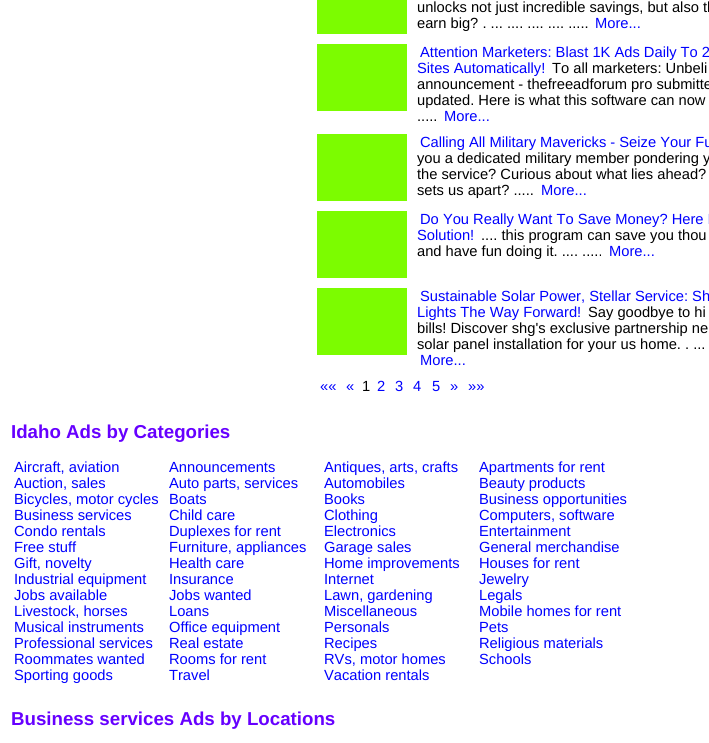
import math
import cairo


def draw(ctx):
	ctx.set_source_rgb(1, 1, 1)
	ctx.paint()
	ctx.set_source_rgb(0.486, 0.988, 0)
	ctx.rectangle(317, 0, 90, 34)
	ctx.fill()
	ctx.select_font_face('Liberation Sans')
	ctx.set_font_size(14.7)
	ctx.set_source_rgb(0, 0, 0)
	ctx.move_to(417, 12)
	ctx.show_text('unlocks not just incredible savings, but also th')
	ctx.move_to(417, 28)
	ctx.show_text('earn big? . ... .... .... .... .....')
	ctx.set_source_rgb(0, 0, 1)
	ctx.move_to(595, 28)
	ctx.show_text('More...')
	ctx.set_source_rgb(0.486, 0.988, 0)
	ctx.rectangle(317, 44, 90, 67)
	ctx.fill()
	ctx.set_source_rgb(0, 0, 1)
	ctx.move_to(420, 57)
	ctx.show_text('Attention Marketers: Blast 1K Ads Daily To 2')
	ctx.move_to(417, 73)
	ctx.show_text('Sites Automatically!')
	ctx.set_source_rgb(0, 0, 0)
	for x, y, s in [
		(552, 73, 'To all marketers: Unbeli'),
		(417, 89, 'announcement - thefreeadforum pro submitte'),
		(417, 105, 'updated. Here is what this software can now'),
		(417, 121, '.....'),
	]:
		ctx.move_to(x, y)
		ctx.show_text(s)
	ctx.set_source_rgb(0, 0, 1)
	ctx.move_to(444, 121)
	ctx.show_text('More...')
	ctx.set_source_rgb(0.486, 0.988, 0)
	ctx.rectangle(317, 134, 90, 67)
	ctx.fill()
	ctx.set_source_rgb(0, 0, 1)
	ctx.move_to(420, 147)
	ctx.show_text('Calling All Military Mavericks - Seize Your Fu')
	ctx.set_source_rgb(0, 0, 0)
	for x, y, s in [
		(417, 163, 'you a dedicated military member pondering y'),
		(417, 179, 'the service? Curious about what lies ahead?'),
		(417, 195, 'sets us apart? .....'),
	]:
		ctx.move_to(x, y)
		ctx.show_text(s)
	ctx.set_source_rgb(0, 0, 1)
	ctx.move_to(541, 195)
	ctx.show_text('More...')
	ctx.set_source_rgb(0.486, 0.988, 0)
	ctx.rectangle(317, 211, 90, 67)
	ctx.fill()
	ctx.set_source_rgb(0, 0, 1)
	ctx.move_to(420, 224)
	ctx.show_text('Do You Really Want To Save Money? Here I')
	ctx.move_to(417, 240)
	ctx.show_text('Solution!')
	ctx.set_source_rgb(0, 0, 0)
	ctx.move_to(481, 240)
	ctx.show_text('.... this program can save you thou')
	ctx.move_to(417, 256)
	ctx.show_text('and have fun doing it. .... .....')
	ctx.set_source_rgb(0, 0, 1)
	ctx.move_to(609, 256)
	ctx.show_text('More...')
	ctx.set_source_rgb(0.486, 0.988, 0)
	ctx.rectangle(317, 288, 90, 67)
	ctx.fill()
	ctx.set_source_rgb(0, 0, 1)
	ctx.move_to(420, 301)
	ctx.show_text('Sustainable Solar Power, Stellar Service: Sh')
	ctx.move_to(417, 317)
	ctx.show_text('Lights The Way Forward!')
	ctx.set_source_rgb(0, 0, 0)
	for x, y, s in [
		(588, 317, 'Say goodbye to hi'),
		(417, 333, 'bills! Discover shg\'s exclusive partnership ne'),
		(417, 349, 'solar panel installation for your us home. . ...'),
	]:
		ctx.move_to(x, y)
		ctx.show_text(s)
	ctx.set_source_rgb(0, 0, 1)
	for x, y, s in [
		(420, 365, 'More...'),
		(320, 391, '««'),
		(346, 391, '«'),
	]:
		ctx.move_to(x, y)
		ctx.show_text(s)
	ctx.set_source_rgb(0, 0, 0)
	ctx.move_to(362, 391)
	ctx.show_text('1')
	ctx.set_source_rgb(0, 0, 1)
	for x, y, s in [
		(377, 391, '2'),
		(395, 391, '3'),
		(413, 391, '4'),
		(432, 391, '5'),
		(450, 391, '»'),
		(468, 391, '»»'),
	]:
		ctx.move_to(x, y)
		ctx.show_text(s)
	ctx.select_font_face('Liberation Sans', cairo.FONT_SLANT_NORMAL, cairo.FONT_WEIGHT_BOLD)
	ctx.set_font_size(18.7)
	ctx.set_source_rgb(0.4, 0, 1)
	ctx.move_to(11, 438)
	ctx.show_text('Idaho Ads by Categories')
	ctx.select_font_face('Liberation Sans')
	ctx.set_font_size(14.7)
	ctx.set_source_rgb(0, 0, 1)
	for x, y, s in [
		(14, 472, 'Aircraft, aviation'),
		(169, 472, 'Announcements'),
		(324, 472, 'Antiques, arts, crafts'),
		(479, 472, 'Apartments for rent'),
		(14, 488, 'Auction, sales'),
		(169, 488, 'Auto parts, services'),
		(324, 488, 'Automobiles'),
		(479, 488, 'Beauty products'),
		(14, 504, 'Bicycles, motor cycles'),
		(169, 504, 'Boats'),
		(324, 504, 'Books'),
		(479, 504, 'Business opportunities'),
		(14, 520, 'Business services'),
		(169, 520, 'Child care'),
		(324, 520, 'Clothing'),
		(479, 520, 'Computers, software'),
		(14, 536, 'Condo rentals'),
		(169, 536, 'Duplexes for rent'),
		(324, 536, 'Electronics'),
		(479, 536, 'Entertainment'),
		(14, 552, 'Free stuff'),
		(169, 552, 'Furniture, appliances'),
		(324, 552, 'Garage sales'),
		(479, 552, 'General merchandise'),
		(14, 568, 'Gift, novelty'),
		(169, 568, 'Health care'),
		(324, 568, 'Home improvements'),
		(479, 568, 'Houses for rent'),
		(14, 584, 'Industrial equipment'),
		(169, 584, 'Insurance'),
		(324, 584, 'Internet'),
		(479, 584, 'Jewelry'),
		(14, 600, 'Jobs available'),
		(169, 600, 'Jobs wanted'),
		(324, 600, 'Lawn, gardening'),
		(479, 600, 'Legals'),
		(14, 616, 'Livestock, horses'),
		(169, 616, 'Loans'),
		(324, 616, 'Miscellaneous'),
		(479, 616, 'Mobile homes for rent'),
		(14, 632, 'Musical instruments'),
		(169, 632, 'Office equipment'),
		(324, 632, 'Personals'),
		(479, 632, 'Pets'),
		(14, 648, 'Professional services'),
		(169, 648, 'Real estate'),
		(324, 648, 'Recipes'),
		(479, 648, 'Religious materials'),
		(14, 664, 'Roommates wanted'),
		(169, 664, 'Rooms for rent'),
		(324, 664, 'RVs, motor homes'),
		(479, 664, 'Schools'),
		(14, 680, 'Sporting goods'),
		(169, 680, 'Travel'),
		(324, 680, 'Vacation rentals'),
	]:
		ctx.move_to(x, y)
		ctx.show_text(s)
	ctx.select_font_face('Liberation Sans', cairo.FONT_SLANT_NORMAL, cairo.FONT_WEIGHT_BOLD)
	ctx.set_font_size(18.7)
	ctx.set_source_rgb(0.4, 0, 1)
	ctx.move_to(11, 725)
	ctx.show_text('Business services Ads by Locations')


surface = cairo.ImageSurface(cairo.FORMAT_RGB24, 709, 743)
ctx = cairo.Context(surface)
options = cairo.FontOptions()
options.set_hint_metrics(cairo.HINT_METRICS_OFF)
options.set_hint_style(cairo.HINT_STYLE_NONE)
ctx.set_font_options(options)
ctx.set_miter_limit(4)
draw(ctx)
surface.write_to_png('image.png')
